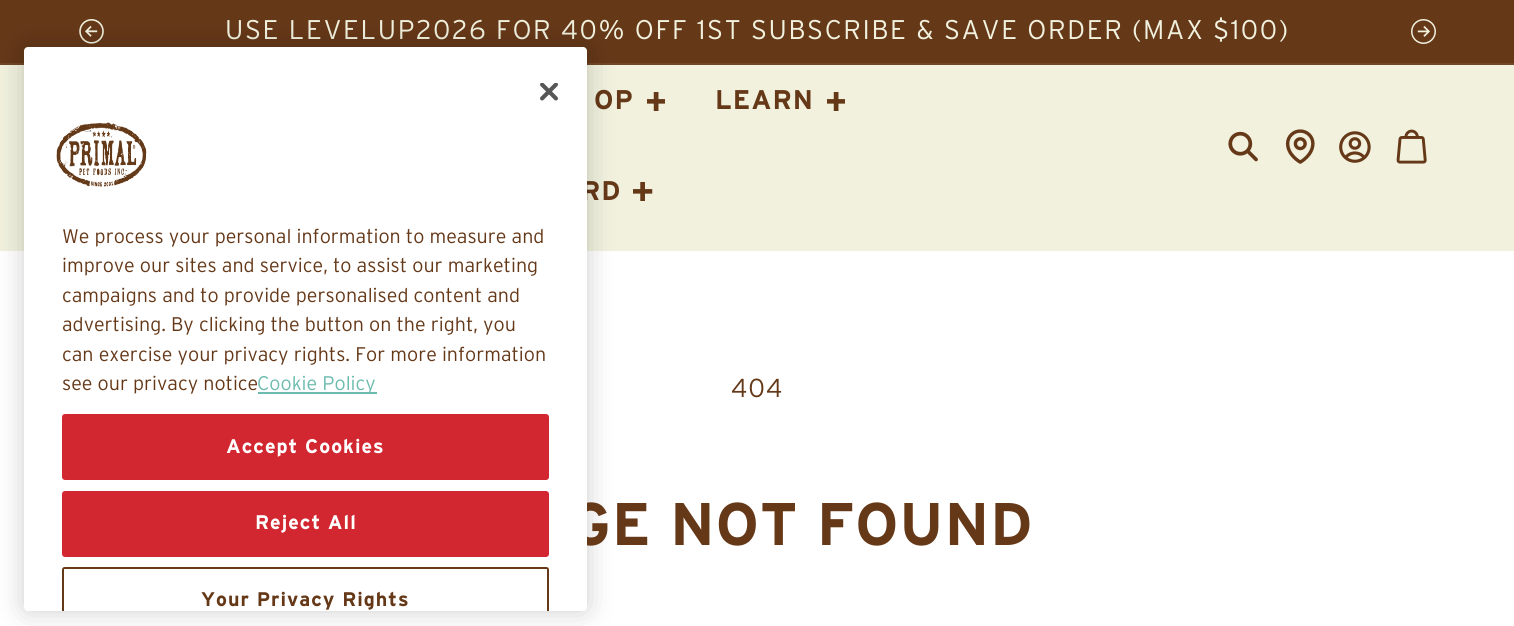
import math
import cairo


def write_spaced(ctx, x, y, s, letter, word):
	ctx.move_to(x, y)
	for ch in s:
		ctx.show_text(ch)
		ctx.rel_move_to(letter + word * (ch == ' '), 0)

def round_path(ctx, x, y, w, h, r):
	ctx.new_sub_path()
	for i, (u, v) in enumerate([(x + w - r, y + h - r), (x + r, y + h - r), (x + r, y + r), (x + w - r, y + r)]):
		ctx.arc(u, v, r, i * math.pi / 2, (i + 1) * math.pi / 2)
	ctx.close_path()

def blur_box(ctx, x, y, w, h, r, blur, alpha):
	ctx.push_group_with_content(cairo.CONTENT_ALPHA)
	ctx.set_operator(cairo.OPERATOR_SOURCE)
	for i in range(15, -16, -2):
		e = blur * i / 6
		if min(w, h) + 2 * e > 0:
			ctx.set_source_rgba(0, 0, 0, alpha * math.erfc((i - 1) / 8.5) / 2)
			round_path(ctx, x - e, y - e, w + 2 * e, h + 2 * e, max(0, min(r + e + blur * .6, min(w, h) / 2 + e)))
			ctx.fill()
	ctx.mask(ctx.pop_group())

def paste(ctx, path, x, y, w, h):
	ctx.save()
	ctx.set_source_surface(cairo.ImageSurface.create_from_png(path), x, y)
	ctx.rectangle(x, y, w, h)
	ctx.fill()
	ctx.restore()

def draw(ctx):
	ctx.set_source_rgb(1, 1, 1)
	ctx.paint()
	ctx.set_source_rgb(0.396, 0.22, 0.094)
	ctx.rectangle(0, 0, 1514, 63)
	ctx.fill()
	ctx.set_source_rgb(0.439, 0.278, 0.157)
	ctx.rectangle(0, 63, 1514, 2)
	ctx.fill()
	paste(ctx, 'media/1.png', 79, 19, 25, 25)
	ctx.select_font_face('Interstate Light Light')
	ctx.set_font_size(27)
	ctx.set_source_rgb(0.945, 0.945, 0.871)
	write_spaced(ctx, 225, 39, 'USE LEVELUP2026 FOR 40% OFF 1ST SUBSCRIBE & SAVE ORDER (MAX $100)', 1.65, 0)
	paste(ctx, 'media/2.png', 1411, 19, 25, 25)
	ctx.rectangle(0, 65, 1514, 186)
	ctx.fill()
	ctx.select_font_face('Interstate', cairo.FONT_SLANT_NORMAL, cairo.FONT_WEIGHT_BOLD)
	ctx.set_source_rgb(0.396, 0.22, 0.094)
	write_spaced(ctx, 594, 109, 'OP', 1, 0)
	paste(ctx, 'media/3.png', 647, 92, 18, 19)
	write_spaced(ctx, 715, 109, 'LEARN', 1, 0)
	paste(ctx, 'media/3.png', 827, 92, 18, 19)
	write_spaced(ctx, 581, 200, 'RD', 1, 0)
	paste(ctx, 'media/4.png', 633, 182, 20, 19)
	paste(ctx, 'media/5.png', 1228, 131, 30, 31)
	paste(ctx, 'media/6.png', 1285, 129, 30, 35)
	paste(ctx, 'media/7.png', 1339, 131, 32, 32)
	paste(ctx, 'media/8.png', 1396, 129, 31, 35)
	ctx.set_source_rgb(0, 0, 0)
	blur_box(ctx, 24, 47, 563, 564, 4, 13.5, 0.2)
	ctx.set_font_size(60)
	ctx.set_source_rgb(0.396, 0.22, 0.094)
	write_spaced(ctx, 569, 545, 'GE NOT FOUND', 0.9, 0)
	ctx.set_source_rgb(1, 1, 1)
	round_path(ctx, 24, 47, 563, 564, 4)
	ctx.fill()
	paste(ctx, 'media/9.png', 540, 83, 18, 18)
	paste(ctx, 'media/10.png', 56, 122, 91, 65)
	ctx.select_font_face('Interstate Light Light')
	ctx.set_font_size(19.7)
	ctx.set_source_rgb(0.396, 0.22, 0.094)
	for x, y, s in [
		(62, 243, 'We process your personal information to measure and'),
		(62, 272, 'improve our sites and service, to assist our marketing'),
		(62, 302, 'campaigns and to provide personalised content and'),
		(62, 331, 'advertising. By clicking the button on the right, you'),
		(62, 361, 'can exercise your privacy rights. For more information'),
		(62, 390, 'see our privacy notice'),
	]:
		ctx.move_to(x, y)
		ctx.show_text(s)
	ctx.set_source_rgb(0.42, 0.733, 0.682)
	ctx.rectangle(258, 392, 119, 2)
	ctx.fill()
	ctx.move_to(257, 390)
	ctx.show_text('Cookie Policy')
	ctx.set_source_rgb(0.824, 0.153, 0.188)
	round_path(ctx, 63, 415, 485, 64, 2)
	ctx.fill_preserve()
	ctx.stroke()
	ctx.select_font_face('Interstate', cairo.FONT_SLANT_NORMAL, cairo.FONT_WEIGHT_BOLD)
	ctx.set_source_rgb(1, 1, 1)
	write_spaced(ctx, 226, 453, 'Accept Cookies', 1, 0)
	ctx.set_source_rgb(0.824, 0.153, 0.188)
	round_path(ctx, 63, 492, 485, 64, 2)
	ctx.fill_preserve()
	ctx.stroke()
	ctx.set_source_rgb(1, 1, 1)
	write_spaced(ctx, 255, 529, 'Reject All', 1, 0)
	ctx.set_source_rgb(0.396, 0.22, 0.094)
	ctx.new_path()
	ctx.move_to(65, 567)
	ctx.curve_to(63, 567, 62, 568, 62, 570)
	ctx.line_to(62, 611)
	ctx.line_to(64, 611)
	ctx.line_to(64, 570)
	ctx.curve_to(64, 569, 64, 569, 65, 569)
	ctx.line_to(546, 569)
	ctx.curve_to(547, 569, 547, 569, 547, 570)
	ctx.line_to(547, 611)
	ctx.line_to(549, 611)
	ctx.line_to(549, 570)
	ctx.curve_to(549, 568, 548, 567, 546, 567)
	ctx.close_path()
	ctx.fill()
	write_spaced(ctx, 201, 606, 'Your Privacy Rights', 1, 0)
	ctx.select_font_face('Interstate Light Light')
	ctx.set_font_size(26)
	write_spaced(ctx, 731, 397, '404', 1, 0)


surface = cairo.ImageSurface(cairo.FORMAT_RGB24, 1514, 626)
ctx = cairo.Context(surface)
options = cairo.FontOptions()
options.set_hint_metrics(cairo.HINT_METRICS_OFF)
options.set_hint_style(cairo.HINT_STYLE_NONE)
ctx.set_font_options(options)
ctx.set_miter_limit(4)
draw(ctx)
surface.write_to_png('image.png')
